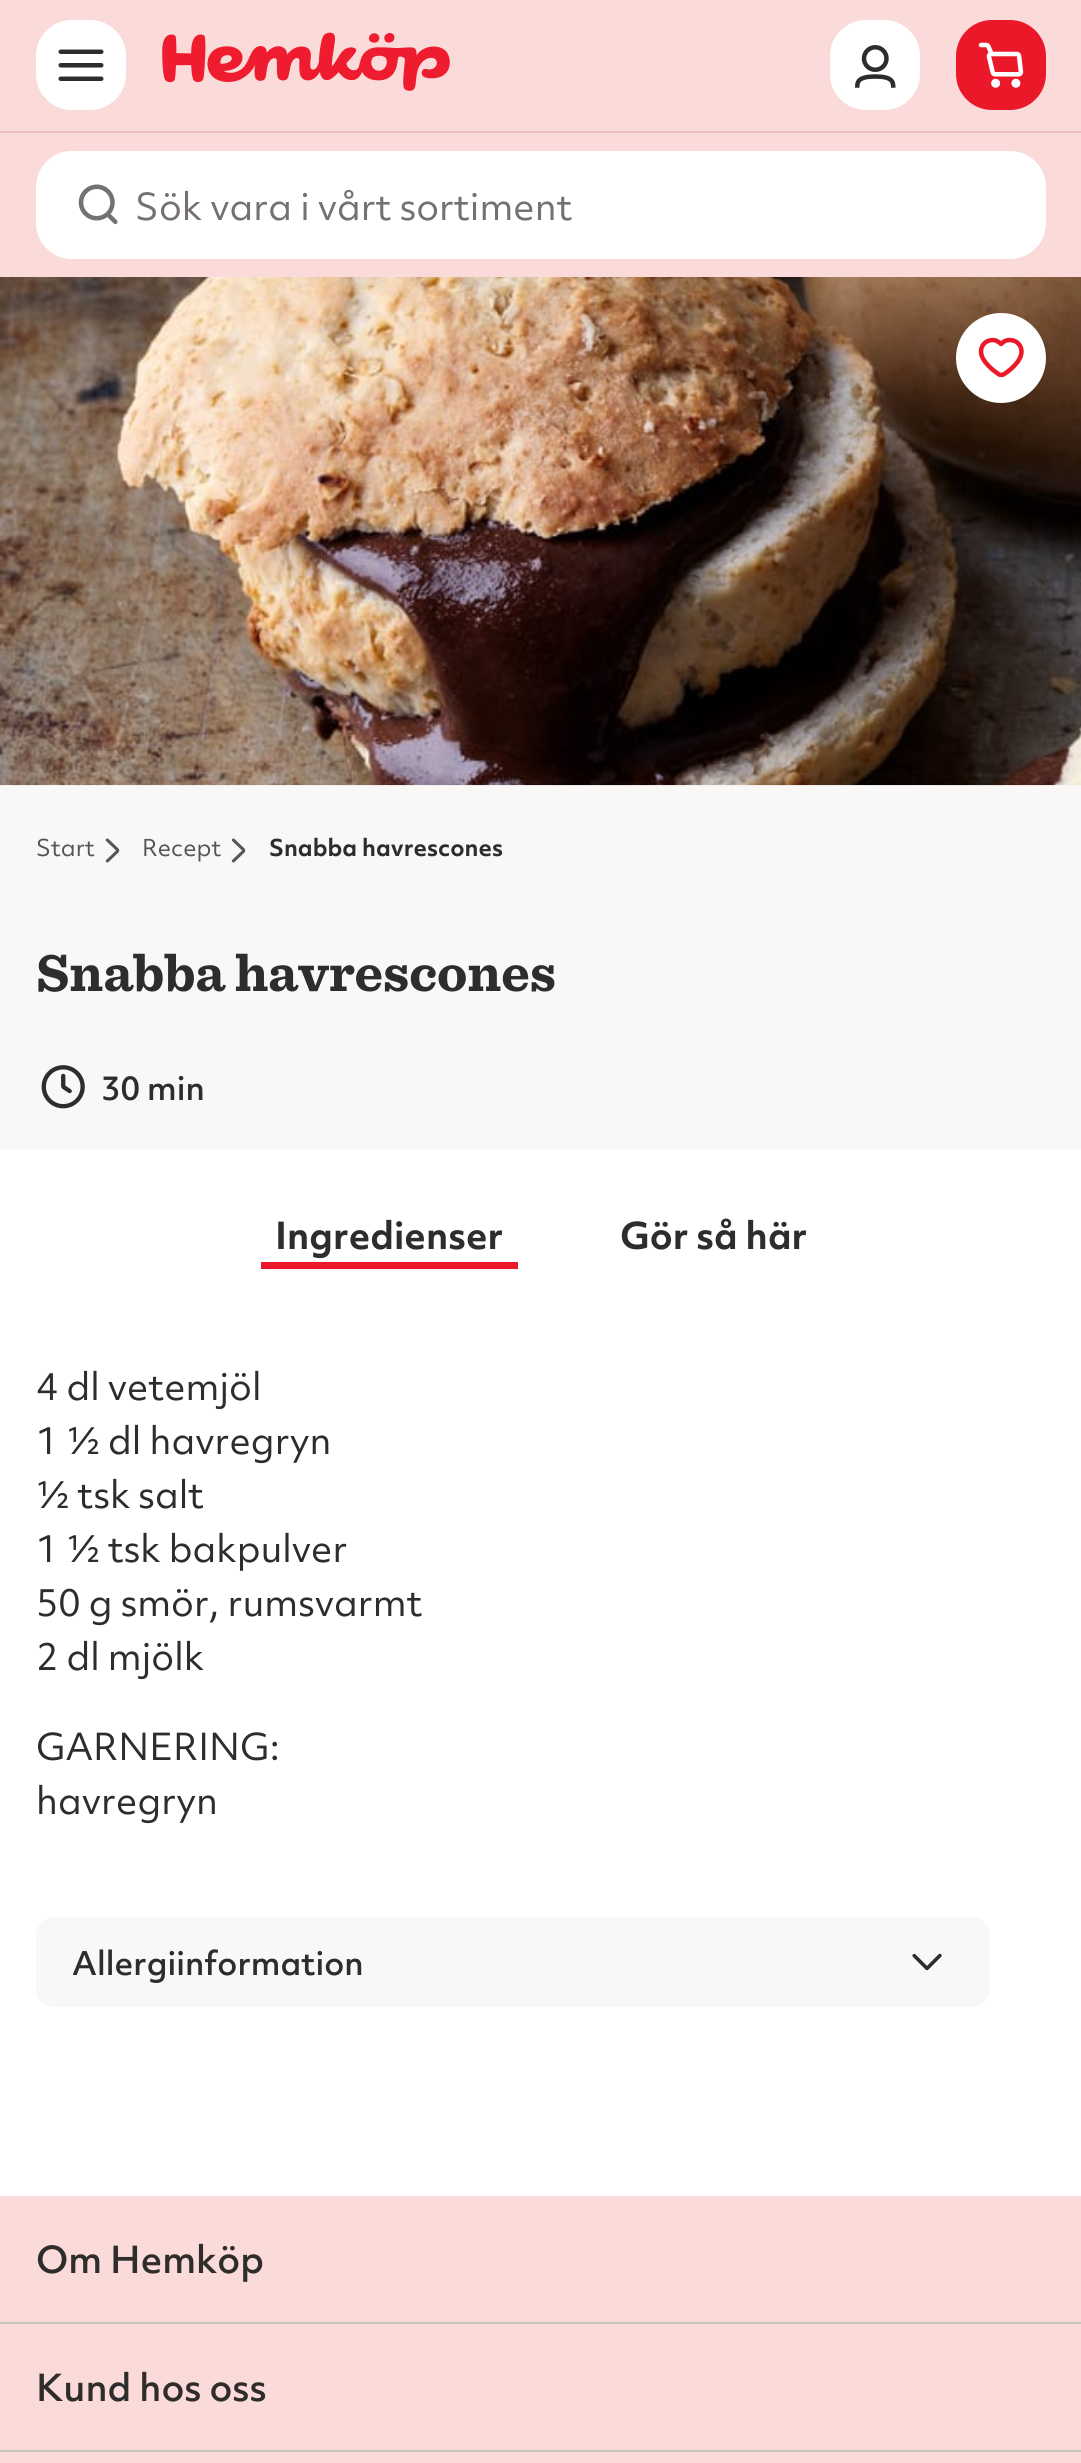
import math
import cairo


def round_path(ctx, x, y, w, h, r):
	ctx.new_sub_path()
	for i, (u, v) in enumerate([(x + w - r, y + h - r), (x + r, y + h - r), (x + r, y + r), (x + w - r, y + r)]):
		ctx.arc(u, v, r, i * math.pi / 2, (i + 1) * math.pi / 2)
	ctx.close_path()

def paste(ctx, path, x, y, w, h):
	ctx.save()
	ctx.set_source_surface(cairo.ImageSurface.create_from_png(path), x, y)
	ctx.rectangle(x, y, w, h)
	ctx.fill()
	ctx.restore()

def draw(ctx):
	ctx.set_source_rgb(1, 1, 1)
	ctx.paint()
	ctx.set_source_rgb(0.98, 0.859, 0.851)
	ctx.rectangle(0, 0, 1081, 277)
	ctx.fill()
	ctx.set_source_rgb(1, 1, 1)
	round_path(ctx, 36, 20, 90, 90, 36)
	ctx.fill()
	paste(ctx, 'media/1.png', 58, 49, 46, 32)
	paste(ctx, 'media/2.png', 162, 32, 288, 59)
	round_path(ctx, 830, 20, 90, 90, 36)
	ctx.fill()
	paste(ctx, 'media/3.png', 855, 45, 41, 43)
	ctx.set_source_rgb(0.918, 0.094, 0.165)
	round_path(ctx, 956, 20, 90, 90, 36)
	ctx.fill()
	paste(ctx, 'media/4.png', 978, 42, 46, 46)
	ctx.set_source_rgb(0.925, 0.749, 0.733)
	ctx.rectangle(0, 131, 1081, 2)
	ctx.fill()
	ctx.set_source_rgb(1, 1, 1)
	round_path(ctx, 36, 151, 1010, 108, 36)
	ctx.fill()
	paste(ctx, 'media/5.png', 78, 184, 40, 41)
	ctx.select_font_face('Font')
	ctx.set_font_size(36)
	ctx.set_source_rgb(0.459, 0.443, 0.435)
	ctx.move_to(135, 220)
	ctx.show_text('Sök vara i vårt sortiment')
	ctx.set_source_rgb(0.973, 0.969, 0.965)
	ctx.rectangle(0, 785, 1081, 365)
	ctx.fill()
	paste(ctx, 'media/6.png', 0, 277, 1081, 509)
	ctx.set_source_rgb(1, 1, 1)
	ctx.arc(1001, 358, 45, 0, 2 * math.pi)
	ctx.fill()
	ctx.new_path()
	ctx.move_to(993, 340)
	ctx.curve_to(997, 340, 1001, 344, 1001, 344)
	ctx.curve_to(1001.5, 344, 1004, 340, 1009.5, 340)
	ctx.curve_to(1017.5, 340, 1021.5, 346, 1021.5, 351.5)
	ctx.curve_to(1021.5, 361.5, 1009, 371, 1003.5, 374.5)
	ctx.curve_to(1002, 375, 1000.5, 375, 999, 374.5)
	ctx.curve_to(994, 371, 981, 361.5, 981, 351.5)
	ctx.curve_to(981, 346, 985, 340, 993, 340)
	ctx.close_path()
	ctx.set_source_rgb(0.918, 0.094, 0.165)
	ctx.set_line_width(4.5)
	ctx.stroke()
	ctx.set_font_size(22.5)
	ctx.set_source_rgb(0.337, 0.333, 0.329)
	ctx.move_to(36, 856)
	ctx.show_text('Start')
	paste(ctx, 'media/7.png', 105, 838, 15, 25)
	ctx.move_to(142, 856)
	ctx.show_text('Recept')
	paste(ctx, 'media/7.png', 231, 838, 15, 25)
	ctx.select_font_face('Font', cairo.FONT_SLANT_NORMAL, cairo.FONT_WEIGHT_BOLD)
	ctx.set_source_rgb(0.18, 0.176, 0.173)
	ctx.move_to(269, 856)
	ctx.show_text('Snabba havrescones')
	ctx.select_font_face('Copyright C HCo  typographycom')
	ctx.set_font_size(54)
	ctx.move_to(36, 991)
	ctx.show_text('Snabba havrescones')
	paste(ctx, 'media/8.png', 41, 1065, 44, 44)
	ctx.select_font_face('Font Medium')
	ctx.set_font_size(31.5)
	ctx.move_to(101, 1100)
	ctx.show_text('30 min')
	ctx.set_source_rgb(0.918, 0.094, 0.165)
	ctx.rectangle(261, 1262, 257, 7)
	ctx.fill()
	ctx.select_font_face('Font', cairo.FONT_SLANT_NORMAL, cairo.FONT_WEIGHT_BOLD)
	ctx.set_font_size(36)
	ctx.set_source_rgb(0.18, 0.176, 0.173)
	ctx.move_to(275, 1249)
	ctx.show_text('Ingredienser')
	ctx.move_to(620, 1249)
	ctx.show_text('Gör så här')
	ctx.select_font_face('Font')
	for x, y, s in [
		(36, 1400, '4 dl vetemjöl'),
		(36, 1454, '1 ½ dl havregryn'),
		(36, 1508, '½ tsk salt'),
		(36, 1562, '1 ½ tsk bakpulver'),
		(36, 1616, '50 g smör, rumsvarmt'),
		(36, 1670, '2 dl mjölk'),
		(36, 1760, 'GARNERING:'),
		(36, 1814, 'havregryn'),
	]:
		ctx.move_to(x, y)
		ctx.show_text(s)
	ctx.set_source_rgb(0.973, 0.969, 0.965)
	round_path(ctx, 36, 1917, 954, 90, 18)
	ctx.fill()
	ctx.select_font_face('Font Medium')
	ctx.set_font_size(31.5)
	ctx.set_source_rgb(0.18, 0.176, 0.173)
	ctx.move_to(72, 1975)
	ctx.show_text('Allergiinformation')
	paste(ctx, 'media/9.png', 912, 1953, 30, 18)
	ctx.set_source_rgb(0.98, 0.859, 0.851)
	ctx.rectangle(0, 2196, 1081, 267)
	ctx.fill()
	ctx.set_source_rgb(0.788, 0.773, 0.745)
	ctx.rectangle(0, 2322, 1081, 2)
	ctx.fill()
	ctx.set_font_size(36)
	ctx.set_source_rgb(0.18, 0.176, 0.173)
	ctx.move_to(36, 2273)
	ctx.show_text('Om Hemköp')
	ctx.set_source_rgb(0.788, 0.773, 0.745)
	ctx.rectangle(0, 2450, 1081, 2)
	ctx.fill()
	ctx.set_source_rgb(0.18, 0.176, 0.173)
	ctx.move_to(36, 2401)
	ctx.show_text('Kund hos oss')


surface = cairo.ImageSurface(cairo.FORMAT_RGB24, 1081, 2463)
ctx = cairo.Context(surface)
options = cairo.FontOptions()
options.set_hint_metrics(cairo.HINT_METRICS_OFF)
options.set_hint_style(cairo.HINT_STYLE_NONE)
ctx.set_font_options(options)
ctx.set_miter_limit(4)
draw(ctx)
surface.write_to_png('image.png')
